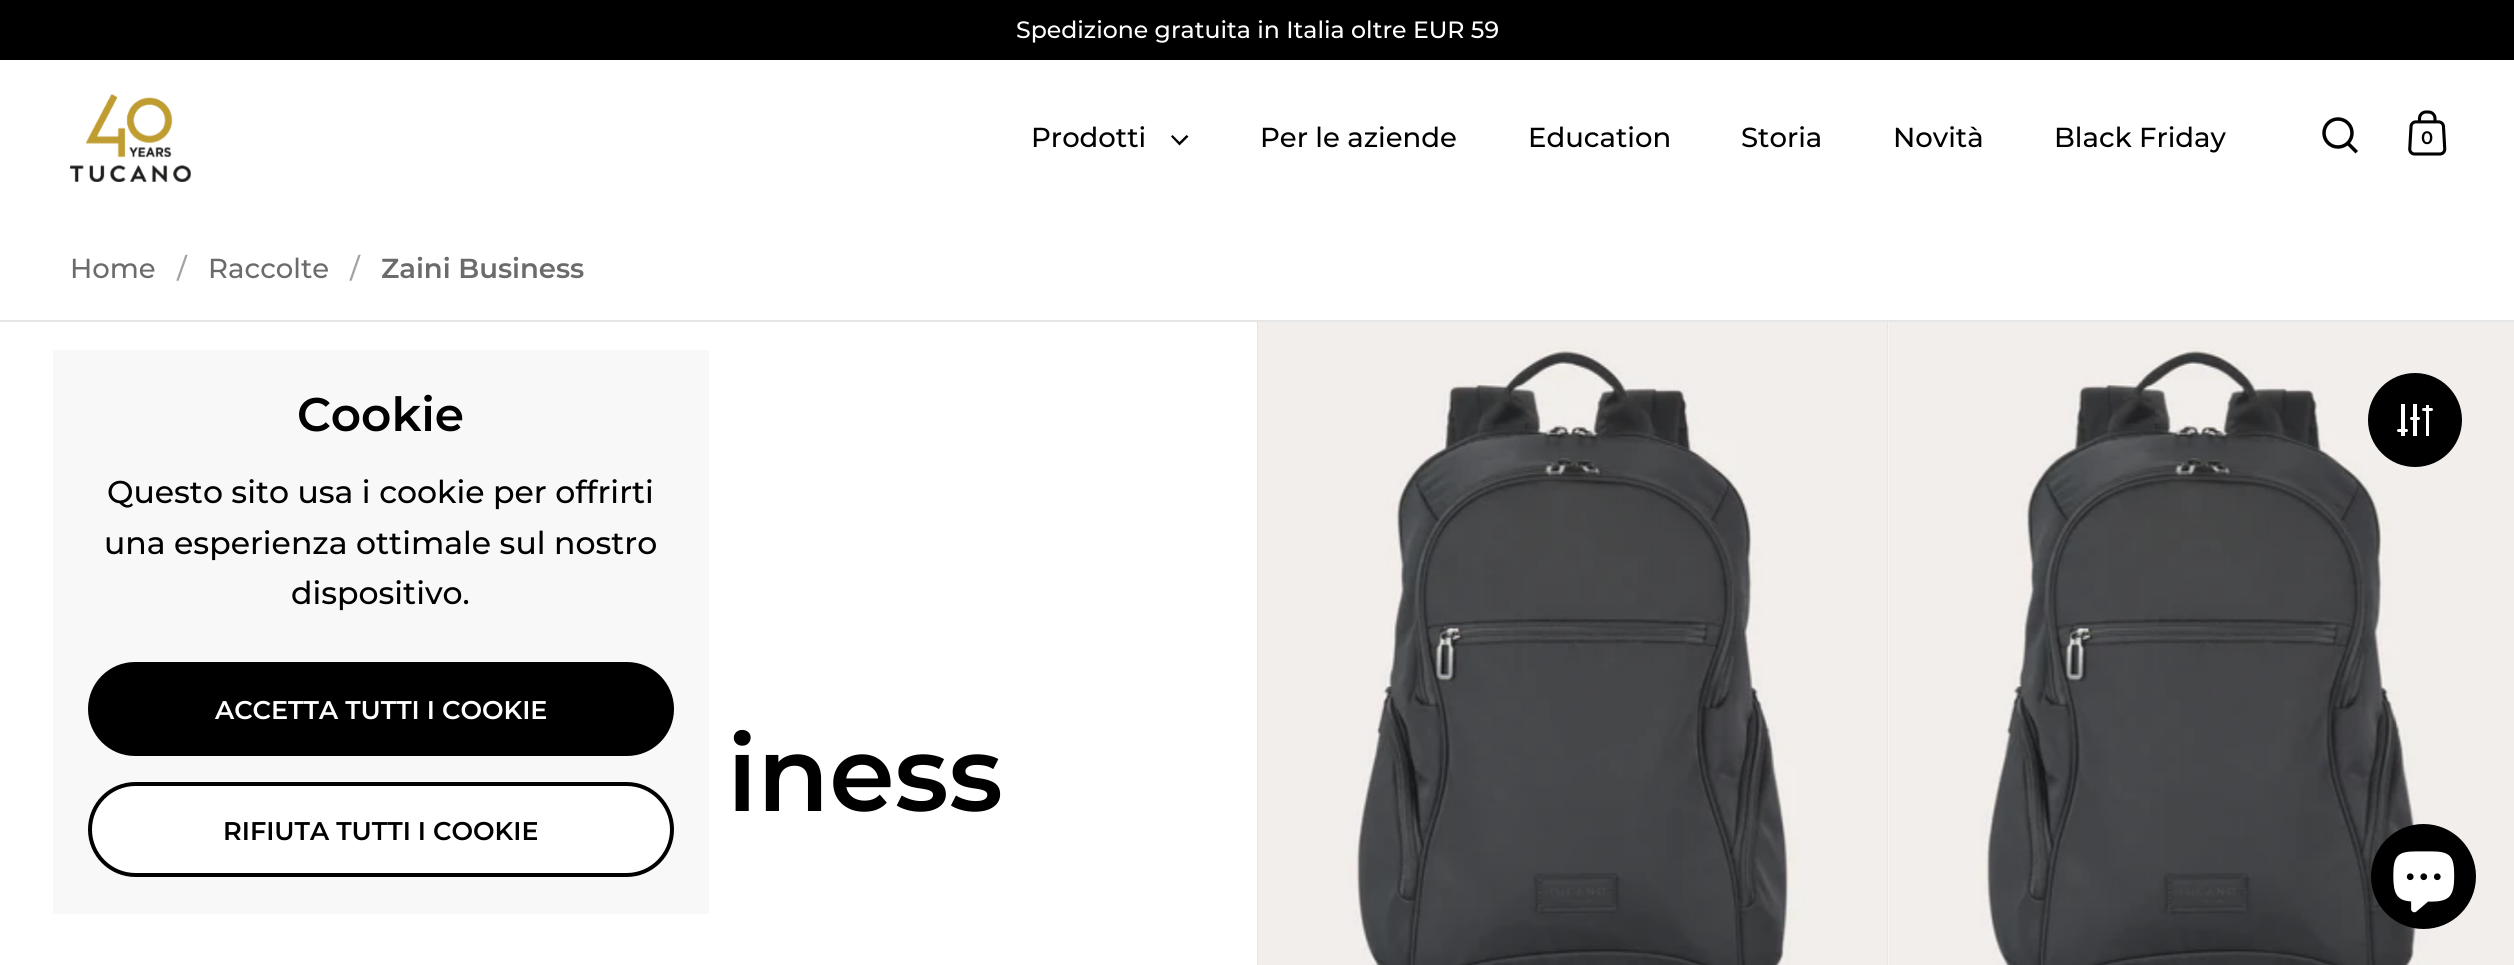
import math
import cairo


def round_path(ctx, x, y, w, h, r):
	ctx.new_sub_path()
	for i, (u, v) in enumerate([(x + w - r, y + h - r), (x + r, y + h - r), (x + r, y + r), (x + w - r, y + r)]):
		ctx.arc(u, v, r, i * math.pi / 2, (i + 1) * math.pi / 2)
	ctx.close_path()

def paste(ctx, path, x, y, w, h):
	ctx.save()
	ctx.set_source_surface(cairo.ImageSurface.create_from_png(path), x, y)
	ctx.rectangle(x, y, w, h)
	ctx.fill()
	ctx.restore()

def draw(ctx):
	ctx.set_source_rgb(1, 1, 1)
	ctx.paint()
	ctx.set_source_rgb(0, 0, 0)
	ctx.rectangle(0, 0, 2514, 60)
	ctx.fill()
	ctx.select_font_face('Montserrat Medium')
	ctx.set_font_size(23.6)
	ctx.set_source_rgb(1, 1, 1)
	ctx.move_to(1016, 38)
	ctx.show_text('Spedizione gratuita in Italia oltre EUR 59')
	paste(ctx, 'media/1.png', 70, 94, 121, 88)
	ctx.set_font_size(27.5)
	ctx.set_source_rgb(0, 0, 0)
	ctx.move_to(1031, 147)
	ctx.show_text('Prodotti')
	ctx.set_fill_rule(cairo.FILL_RULE_EVEN_ODD)
	ctx.new_path()
	ctx.move_to(1179.5, 142)
	ctx.line_to(1172.5, 135)
	ctx.line_to(1171, 136.5)
	ctx.line_to(1179.5, 145.5)
	ctx.line_to(1188.5, 136.5)
	ctx.line_to(1186.5, 135)
	ctx.close_path()
	ctx.fill()
	for x, y, s in [
		(1260, 147, 'Per le aziende'),
		(1528, 147, 'Education'),
		(1741, 147, 'Storia'),
		(1893, 147, 'Novità'),
		(2054, 147, 'Black Friday'),
	]:
		ctx.move_to(x, y)
		ctx.show_text(s)
	ctx.new_path()
	ctx.arc(2338, 133, 14, 0, 2 * math.pi)
	ctx.set_line_width(3.5)
	ctx.stroke()
	ctx.set_fill_rule(cairo.FILL_RULE_WINDING)
	ctx.new_path()
	ctx.move_to(2347, 145)
	ctx.line_to(2349.5, 142.5)
	ctx.line_to(2358, 151)
	ctx.line_to(2355.5, 153.5)
	ctx.close_path()
	ctx.fill()
	paste(ctx, 'media/2.png', 2408, 110, 39, 46)
	ctx.select_font_face('Montserrat SemiBold')
	ctx.set_font_size(18)
	ctx.move_to(2421, 144)
	ctx.show_text('0')
	ctx.select_font_face('Montserrat Medium')
	ctx.set_font_size(27.5)
	ctx.set_source_rgb(0.42, 0.42, 0.42)
	ctx.move_to(70, 278)
	ctx.show_text('Home')
	ctx.set_source_rgb(0.639, 0.639, 0.639)
	ctx.move_to(177, 278)
	ctx.show_text('/')
	ctx.set_source_rgb(0.42, 0.42, 0.42)
	ctx.move_to(208, 278)
	ctx.show_text('Raccolte')
	ctx.set_source_rgb(0.639, 0.639, 0.639)
	ctx.move_to(350, 278)
	ctx.show_text('/')
	ctx.select_font_face('Montserrat SemiBold')
	ctx.set_source_rgb(0.42, 0.42, 0.42)
	ctx.move_to(381, 278)
	ctx.show_text('Zaini Business')
	ctx.set_source_rgb(0.969, 0.969, 0.969)
	ctx.rectangle(53, 350, 656, 564)
	ctx.fill()
	ctx.set_font_size(47)
	ctx.set_source_rgb(0, 0, 0)
	ctx.move_to(297, 431)
	ctx.show_text('Cookie')
	ctx.select_font_face('Montserrat Medium')
	ctx.set_font_size(31.5)
	for x, y, s in [
		(107, 503, 'Questo sito usa i cookie per offrirti'),
		(104, 554, 'una esperienza ottimale sul nostro'),
		(291, 604, 'dispositivo.'),
	]:
		ctx.move_to(x, y)
		ctx.show_text(s)
	round_path(ctx, 88, 662, 586, 94, 47)
	ctx.fill()
	ctx.select_font_face('Montserrat SemiBold')
	ctx.set_font_size(25.6)
	ctx.set_source_rgb(1, 1, 1)
	ctx.move_to(215, 719)
	ctx.show_text('ACCETTA TUTTI I COOKIE')
	round_path(ctx, 90, 784, 582, 91, 45.5)
	ctx.fill_preserve()
	ctx.set_source_rgb(0, 0, 0)
	ctx.set_line_width(4)
	ctx.stroke()
	ctx.move_to(223, 840)
	ctx.show_text('RIFIUTA TUTTI I COOKIE')
	paste(ctx, 'media/4.png', 1888, 322, 626, 643)
	ctx.arc(2415, 420, 47, 0, 2 * math.pi)
	ctx.fill()
	ctx.set_source_rgb(1, 1, 1)
	ctx.rectangle(2401, 404, 4, 32)
	ctx.rectangle(2413, 404, 4, 32)
	ctx.rectangle(2426, 405, 3, 31)
	ctx.fill()
	round_path(ctx, 2422, 408, 11, 3, 1.5)
	ctx.fill()
	round_path(ctx, 2410, 417, 10, 3, 1.5)
	ctx.fill()
	round_path(ctx, 2397, 429, 11, 3, 1.5)
	ctx.fill()
	ctx.set_source_rgb(0.902, 0.902, 0.902)
	ctx.rectangle(1257, 322, 1, 643)
	ctx.fill()
	ctx.rectangle(0, 320, 1258, 2)
	ctx.fill()
	ctx.set_font_size(105)
	ctx.set_source_rgb(0, 0, 0)
	ctx.move_to(727, 811)
	ctx.show_text('iness')
	ctx.set_source_rgb(0.902, 0.902, 0.902)
	ctx.new_path()
	ctx.move_to(1258, 320)
	ctx.line_to(1888, 320)
	ctx.line_to(1886, 322)
	ctx.line_to(1258, 322)
	ctx.close_path()
	ctx.fill()
	ctx.set_source_rgba(0, 0, 0, 0.1)
	ctx.new_path()
	ctx.move_to(1888, 320)
	ctx.line_to(1888, 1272)
	ctx.line_to(1886, 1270)
	ctx.line_to(1886, 322)
	ctx.close_path()
	ctx.fill()
	paste(ctx, 'media/3.png', 1258, 322, 629, 643)
	ctx.set_source_rgb(0.902, 0.902, 0.902)
	ctx.new_path()
	ctx.move_to(1888, 320)
	ctx.line_to(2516, 320)
	ctx.line_to(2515, 322)
	ctx.line_to(1888, 322)
	ctx.close_path()
	ctx.fill()
	ctx.set_source_rgb(0, 0, 0)
	ctx.arc(2423.5, 876.5, 52.5, 0, 2 * math.pi)
	ctx.fill()
	paste(ctx, 'media/5.png', 2393, 851, 62, 62)


surface = cairo.ImageSurface(cairo.FORMAT_RGB24, 2514, 965)
ctx = cairo.Context(surface)
options = cairo.FontOptions()
options.set_hint_metrics(cairo.HINT_METRICS_OFF)
options.set_hint_style(cairo.HINT_STYLE_NONE)
ctx.set_font_options(options)
ctx.set_miter_limit(4)
draw(ctx)
surface.write_to_png('image.png')
